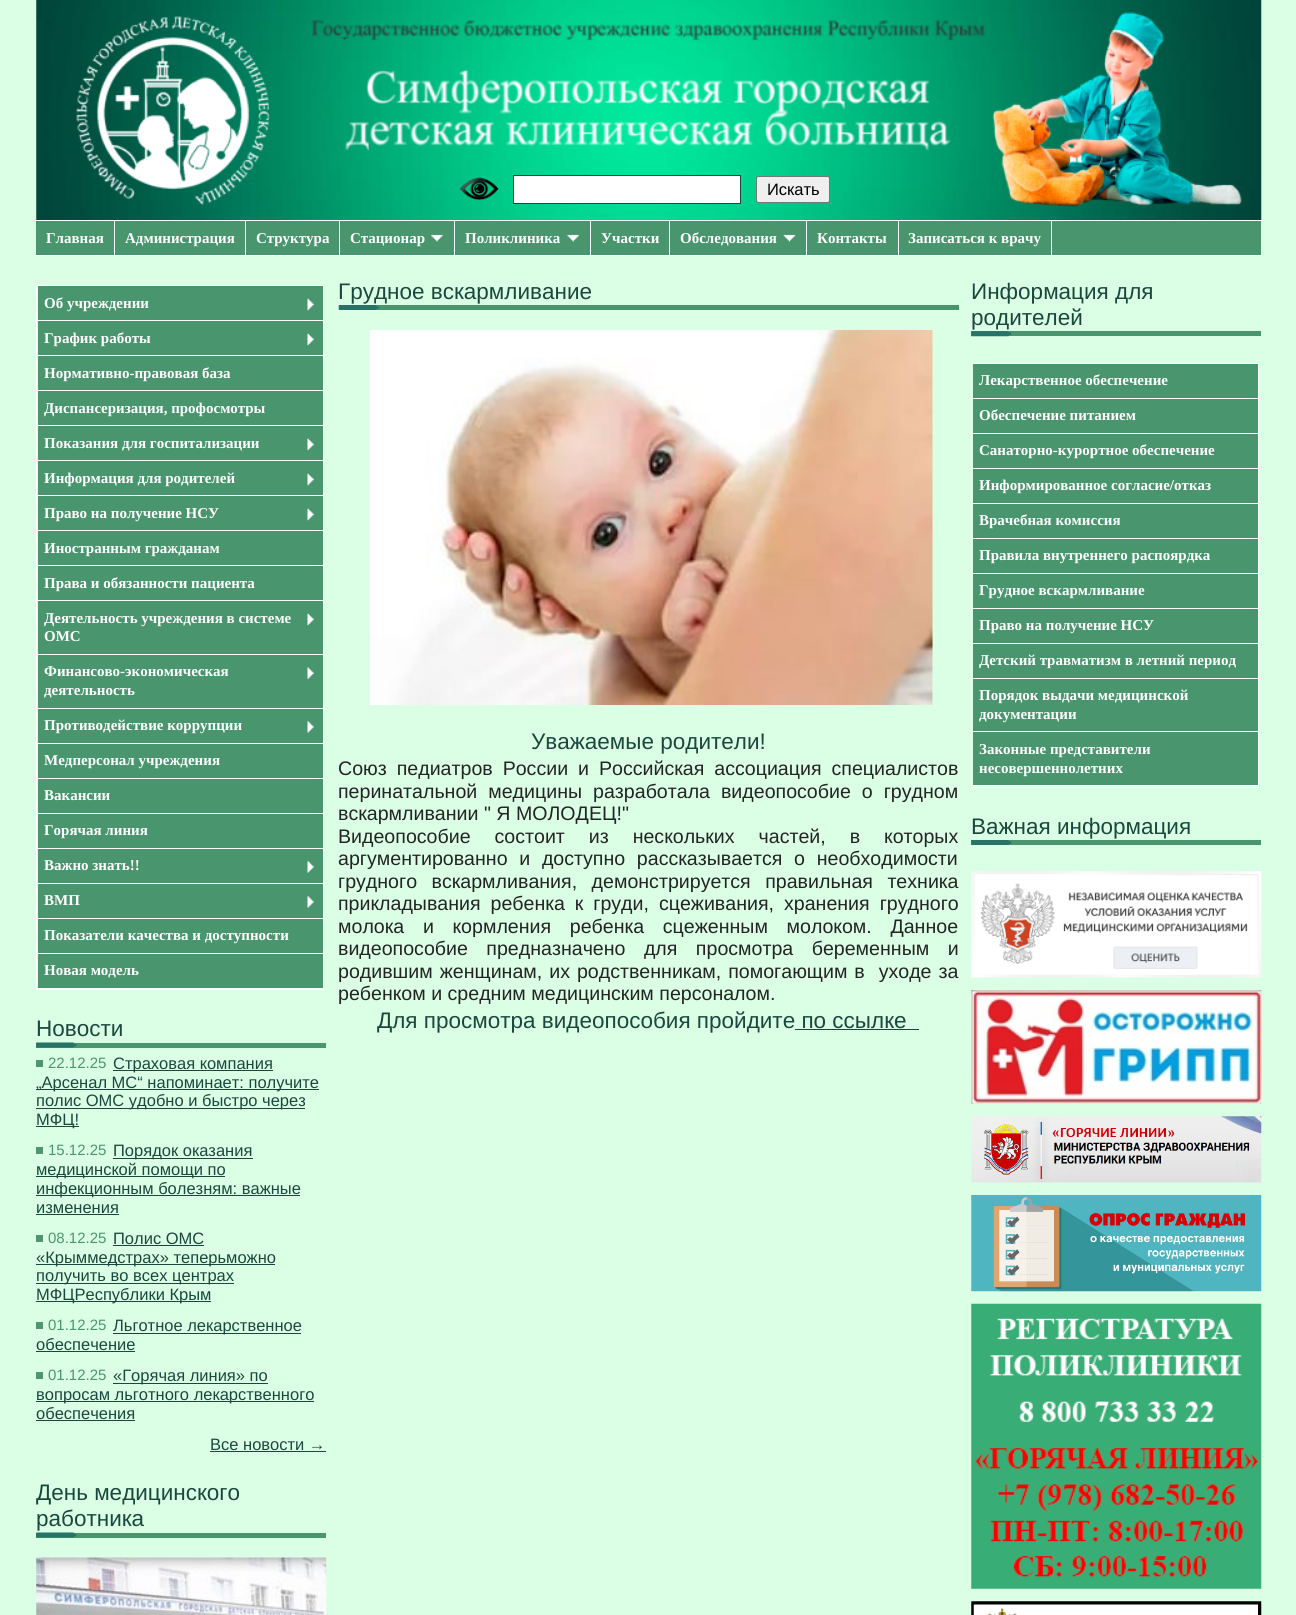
import math
import cairo


def write_spaced(ctx, x, y, s, letter, word):
	ctx.move_to(x, y)
	for ch in s:
		ctx.show_text(ch)
		ctx.rel_move_to(letter + word * (ch == ' '), 0)

def round_path(ctx, x, y, w, h, r):
	ctx.new_sub_path()
	for i, (u, v) in enumerate([(x + w - r, y + h - r), (x + r, y + h - r), (x + r, y + r), (x + w - r, y + r)]):
		ctx.arc(u, v, r, i * math.pi / 2, (i + 1) * math.pi / 2)
	ctx.close_path()

def paste(ctx, path, x, y, w, h):
	ctx.save()
	ctx.set_source_surface(cairo.ImageSurface.create_from_png(path), x, y)
	ctx.rectangle(x, y, w, h)
	ctx.fill()
	ctx.restore()

def draw(ctx):
	ctx.set_source_rgb(0.859, 1, 0.898)
	ctx.paint()
	paste(ctx, 'media/1.png', 36, 0, 1226, 220)
	paste(ctx, 'media/2.png', 76, 16, 194, 189)
	paste(ctx, 'media/3.png', 311, 19, 675, 132)
	paste(ctx, 'media/4.png', 992, 12, 250, 206)
	paste(ctx, 'media/5.png', 460, 177, 39, 23)
	ctx.set_source_rgb(1, 1, 1)
	ctx.rectangle(513.5, 175.5, 227, 28)
	ctx.fill_preserve()
	ctx.set_source_rgb(0.102, 0.282, 0.243)
	ctx.set_line_width(1)
	ctx.stroke()
	ctx.set_source_rgb(0.937, 0.937, 0.937)
	round_path(ctx, 756.5, 176.5, 73, 26, 2)
	ctx.fill_preserve()
	ctx.set_source_rgb(0.463, 0.463, 0.463)
	ctx.stroke()
	ctx.select_font_face('Liberation Sans')
	ctx.set_font_size(16.5)
	ctx.set_source_rgb(0, 0, 0)
	ctx.move_to(767, 195)
	ctx.show_text('Искать')
	ctx.set_source_rgb(1, 1, 1)
	ctx.rectangle(36, 220, 1225, 1)
	ctx.fill()
	ctx.set_source_rgb(0.286, 0.584, 0.431)
	ctx.rectangle(36, 221, 1225, 34)
	ctx.fill()
	ctx.set_source_rgb(1, 1, 1)
	ctx.rectangle(36, 255, 1225, 1)
	ctx.rectangle(114, 221, 1, 34)
	ctx.fill()
	ctx.select_font_face('Liberation Serif', cairo.FONT_SLANT_NORMAL, cairo.FONT_WEIGHT_BOLD)
	ctx.set_font_size(15)
	ctx.move_to(46, 243)
	ctx.show_text('Главная')
	ctx.rectangle(245, 221, 1, 34)
	ctx.fill()
	ctx.move_to(125, 243)
	ctx.show_text('Администрация')
	ctx.rectangle(339, 221, 1, 34)
	ctx.fill()
	ctx.move_to(256, 243)
	ctx.show_text('Структура')
	ctx.rectangle(454, 221, 1, 34)
	ctx.fill()
	ctx.move_to(350, 243)
	ctx.show_text('Стационар')
	paste(ctx, 'media/6.png', 431, 234, 12, 8)
	ctx.rectangle(590, 221, 1, 34)
	ctx.fill()
	ctx.move_to(465, 243)
	ctx.show_text('Поликлиника')
	paste(ctx, 'media/7.png', 567, 234, 12, 8)
	ctx.rectangle(669, 221, 1, 34)
	ctx.fill()
	ctx.move_to(601, 243)
	ctx.show_text('Участки')
	ctx.rectangle(806, 221, 1, 34)
	ctx.fill()
	ctx.move_to(680, 243)
	ctx.show_text('Обследования')
	paste(ctx, 'media/8.png', 783, 234, 13, 8)
	ctx.rectangle(898, 221, 1, 34)
	ctx.fill()
	ctx.move_to(817, 243)
	ctx.show_text('Контакты')
	ctx.rectangle(1051, 221, 1, 34)
	ctx.fill()
	ctx.move_to(908, 243)
	ctx.show_text('Записаться к врачу')
	ctx.rectangle(36.5, 285.5, 287, 704)
	ctx.stroke()
	ctx.set_source_rgb(0.286, 0.584, 0.431)
	ctx.rectangle(38, 286, 285, 34)
	ctx.fill()
	ctx.set_source_rgb(1, 1, 1)
	ctx.rectangle(38, 320, 285, 1)
	ctx.fill()
	ctx.move_to(44, 308)
	ctx.show_text('Об учреждении')
	paste(ctx, 'media/9.png', 307, 298, 7, 13)
	ctx.set_source_rgb(0.286, 0.584, 0.431)
	ctx.rectangle(38, 321, 285, 34)
	ctx.fill()
	ctx.set_source_rgb(1, 1, 1)
	ctx.rectangle(38, 355, 285, 1)
	ctx.fill()
	ctx.move_to(44, 343)
	ctx.show_text('График работы')
	paste(ctx, 'media/9.png', 307, 333, 7, 13)
	ctx.set_source_rgb(0.286, 0.584, 0.431)
	ctx.rectangle(38, 356, 285, 34)
	ctx.fill()
	ctx.set_source_rgb(1, 1, 1)
	ctx.rectangle(38, 390, 285, 1)
	ctx.fill()
	ctx.move_to(44, 378)
	ctx.show_text('Нормативно-правовая база')
	ctx.set_source_rgb(0.286, 0.584, 0.431)
	ctx.rectangle(38, 391, 285, 34)
	ctx.fill()
	ctx.set_source_rgb(1, 1, 1)
	ctx.rectangle(38, 425, 285, 1)
	ctx.fill()
	ctx.move_to(44, 413)
	ctx.show_text('Диспансеризация, профосмотры')
	ctx.set_source_rgb(0.286, 0.584, 0.431)
	ctx.rectangle(38, 426, 285, 34)
	ctx.fill()
	ctx.set_source_rgb(1, 1, 1)
	ctx.rectangle(38, 460, 285, 1)
	ctx.fill()
	ctx.move_to(44, 448)
	ctx.show_text('Показания для госпитализации')
	paste(ctx, 'media/9.png', 307, 438, 7, 13)
	ctx.set_source_rgb(0.286, 0.584, 0.431)
	ctx.rectangle(38, 461, 285, 34)
	ctx.fill()
	ctx.set_source_rgb(1, 1, 1)
	ctx.rectangle(38, 495, 285, 1)
	ctx.fill()
	ctx.move_to(44, 483)
	ctx.show_text('Информация для родителей')
	paste(ctx, 'media/9.png', 307, 473, 7, 13)
	ctx.set_source_rgb(0.286, 0.584, 0.431)
	ctx.rectangle(38, 496, 285, 34)
	ctx.fill()
	ctx.set_source_rgb(1, 1, 1)
	ctx.rectangle(38, 530, 285, 1)
	ctx.fill()
	ctx.move_to(44, 518)
	ctx.show_text('Право на получение НСУ')
	paste(ctx, 'media/9.png', 307, 508, 7, 13)
	ctx.set_source_rgb(0.286, 0.584, 0.431)
	ctx.rectangle(38, 531, 285, 34)
	ctx.fill()
	ctx.set_source_rgb(1, 1, 1)
	ctx.rectangle(38, 565, 285, 1)
	ctx.fill()
	ctx.move_to(44, 553)
	ctx.show_text('Иностранным гражданам')
	ctx.set_source_rgb(0.286, 0.584, 0.431)
	ctx.rectangle(38, 566, 285, 34)
	ctx.fill()
	ctx.set_source_rgb(1, 1, 1)
	ctx.rectangle(38, 600, 285, 1)
	ctx.fill()
	ctx.move_to(44, 588)
	ctx.show_text('Права и обязанности пациента')
	ctx.set_source_rgb(0.286, 0.584, 0.431)
	ctx.rectangle(38, 601, 285, 53)
	ctx.fill()
	ctx.set_source_rgb(1, 1, 1)
	ctx.rectangle(38, 654, 285, 1)
	ctx.fill()
	ctx.move_to(44, 623)
	ctx.show_text('Деятельность учреждения в системе')
	paste(ctx, 'media/9.png', 307, 613, 7, 13)
	ctx.move_to(44, 641)
	ctx.show_text('ОМС')
	ctx.set_source_rgb(0.286, 0.584, 0.431)
	ctx.rectangle(38, 655, 285, 53)
	ctx.fill()
	ctx.set_source_rgb(1, 1, 1)
	ctx.rectangle(38, 708, 285, 1)
	ctx.fill()
	ctx.move_to(44, 676)
	ctx.show_text('Финансово-экономическая')
	paste(ctx, 'media/10.png', 307, 667, 7, 12)
	ctx.move_to(44, 695)
	ctx.show_text('деятельность')
	ctx.set_source_rgb(0.286, 0.584, 0.431)
	ctx.rectangle(38, 709, 285, 34)
	ctx.fill()
	ctx.set_source_rgb(1, 1, 1)
	ctx.rectangle(38, 743, 285, 1)
	ctx.fill()
	ctx.move_to(44, 730)
	ctx.show_text('Противодействие коррупции')
	paste(ctx, 'media/11.png', 307, 721, 7, 12)
	ctx.set_source_rgb(0.286, 0.584, 0.431)
	ctx.rectangle(38, 744, 285, 34)
	ctx.fill()
	ctx.set_source_rgb(1, 1, 1)
	ctx.rectangle(38, 778, 285, 1)
	ctx.fill()
	ctx.move_to(44, 765)
	ctx.show_text('Медперсонал учреждения')
	ctx.set_source_rgb(0.286, 0.584, 0.431)
	ctx.rectangle(38, 779, 285, 34)
	ctx.fill()
	ctx.set_source_rgb(1, 1, 1)
	ctx.rectangle(38, 813, 285, 1)
	ctx.fill()
	ctx.move_to(44, 800)
	ctx.show_text('Вакансии')
	ctx.set_source_rgb(0.286, 0.584, 0.431)
	ctx.rectangle(38, 814, 285, 34)
	ctx.fill()
	ctx.set_source_rgb(1, 1, 1)
	ctx.rectangle(38, 848, 285, 1)
	ctx.fill()
	ctx.move_to(44, 835)
	ctx.show_text('Горячая линия')
	ctx.set_source_rgb(0.286, 0.584, 0.431)
	ctx.rectangle(38, 849, 285, 34)
	ctx.fill()
	ctx.set_source_rgb(1, 1, 1)
	ctx.rectangle(38, 883, 285, 1)
	ctx.fill()
	ctx.move_to(44, 870)
	ctx.show_text('Важно знать!!')
	paste(ctx, 'media/11.png', 307, 861, 7, 12)
	ctx.set_source_rgb(0.286, 0.584, 0.431)
	ctx.rectangle(38, 884, 285, 34)
	ctx.fill()
	ctx.set_source_rgb(1, 1, 1)
	ctx.rectangle(38, 918, 285, 1)
	ctx.fill()
	ctx.move_to(44, 905)
	ctx.show_text('ВМП')
	paste(ctx, 'media/11.png', 307, 896, 7, 12)
	ctx.set_source_rgb(0.286, 0.584, 0.431)
	ctx.rectangle(38, 919, 285, 34)
	ctx.fill()
	ctx.set_source_rgb(1, 1, 1)
	ctx.rectangle(38, 953, 285, 1)
	ctx.fill()
	ctx.move_to(44, 940)
	ctx.show_text('Показатели качества и доступности')
	ctx.set_source_rgb(0.286, 0.584, 0.431)
	ctx.rectangle(38, 954, 285, 34)
	ctx.fill()
	ctx.set_source_rgb(1, 1, 1)
	ctx.rectangle(38, 988, 285, 1)
	ctx.fill()
	ctx.move_to(44, 975)
	ctx.show_text('Новая модель')
	ctx.select_font_face('Liberation Sans')
	ctx.set_font_size(22.5)
	ctx.set_source_rgb(0.102, 0.282, 0.243)
	ctx.move_to(36, 1036)
	ctx.show_text('Новости')
	ctx.set_source_rgb(0.286, 0.584, 0.431)
	ctx.rectangle(36, 1043, 290, 5)
	ctx.fill()
	paste(ctx, 'media/12.png', 36, 1042, 41, 6)
	ctx.set_font_size(15)
	ctx.move_to(48, 1068)
	ctx.show_text('22.12.25')
	ctx.set_source_rgb(0.322, 0.584, 0.451)
	ctx.rectangle(36, 1060, 7, 7)
	ctx.fill()
	ctx.set_source_rgb(0.102, 0.282, 0.243)
	ctx.rectangle(113, 1070, 160, 1)
	ctx.fill()
	ctx.set_font_size(16.5)
	ctx.move_to(113, 1069)
	ctx.show_text('Страховая компания')
	ctx.rectangle(36, 1089, 283, 1)
	ctx.fill()
	ctx.move_to(36, 1088)
	ctx.show_text('„Арсенал МС“ напоминает: получите')
	ctx.rectangle(36, 1108, 269, 1)
	ctx.fill()
	ctx.move_to(36, 1106)
	ctx.show_text('полис ОМС удобно и быстро через')
	ctx.rectangle(36, 1126, 43, 1)
	ctx.fill()
	ctx.move_to(36, 1125)
	ctx.show_text('МФЦ!')
	ctx.set_font_size(15)
	ctx.set_source_rgb(0.286, 0.584, 0.431)
	ctx.move_to(48, 1155)
	ctx.show_text('15.12.25')
	ctx.set_source_rgb(0.322, 0.584, 0.451)
	ctx.rectangle(36, 1147, 7, 7)
	ctx.fill()
	ctx.set_source_rgb(0.102, 0.282, 0.243)
	ctx.rectangle(113, 1158, 140, 1)
	ctx.fill()
	ctx.set_font_size(16.5)
	ctx.move_to(113, 1156)
	ctx.show_text('Порядок оказания')
	ctx.rectangle(36, 1176, 189, 1)
	ctx.fill()
	ctx.move_to(36, 1175)
	ctx.show_text('медицинской помощи по')
	ctx.rectangle(36, 1195, 264, 1)
	ctx.fill()
	ctx.move_to(36, 1194)
	ctx.show_text('инфекционным болезням: важные')
	ctx.move_to(36, 1213)
	ctx.show_text('изменения')
	ctx.rectangle(36, 1214, 83, 1)
	ctx.fill()
	ctx.set_font_size(15)
	ctx.set_source_rgb(0.286, 0.584, 0.431)
	ctx.move_to(48, 1243)
	ctx.show_text('08.12.25')
	ctx.set_source_rgb(0.322, 0.584, 0.451)
	ctx.rectangle(36, 1235, 7, 7)
	ctx.fill()
	ctx.set_font_size(16.5)
	ctx.set_source_rgb(0.102, 0.282, 0.243)
	ctx.move_to(113, 1244)
	ctx.show_text('Полис ОМС')
	ctx.rectangle(113, 1245, 91, 1)
	ctx.fill()
	ctx.rectangle(36, 1264, 239, 1)
	ctx.fill()
	ctx.move_to(36, 1263)
	ctx.show_text('«Крыммедстрах» теперьможно')
	ctx.rectangle(36, 1283, 198, 1)
	ctx.fill()
	ctx.move_to(36, 1281)
	ctx.show_text('получить во всех центрах')
	ctx.rectangle(36, 1301, 175, 1)
	ctx.fill()
	ctx.move_to(36, 1300)
	ctx.show_text('МФЦРеспублики Крым')
	ctx.set_font_size(15)
	ctx.set_source_rgb(0.286, 0.584, 0.431)
	ctx.move_to(48, 1330)
	ctx.show_text('01.12.25')
	ctx.set_source_rgb(0.322, 0.584, 0.451)
	ctx.rectangle(36, 1322, 7, 7)
	ctx.fill()
	ctx.set_source_rgb(0.102, 0.282, 0.243)
	ctx.rectangle(113, 1333, 188, 1)
	ctx.fill()
	ctx.set_font_size(16.5)
	ctx.move_to(113, 1331)
	ctx.show_text('Льготное лекарственное')
	ctx.move_to(36, 1350)
	ctx.show_text('обеспечение')
	ctx.rectangle(36, 1351, 99, 1)
	ctx.fill()
	ctx.set_font_size(15)
	ctx.set_source_rgb(0.286, 0.584, 0.431)
	ctx.move_to(48, 1380)
	ctx.show_text('01.12.25')
	ctx.set_source_rgb(0.322, 0.584, 0.451)
	ctx.rectangle(36, 1372, 7, 7)
	ctx.fill()
	ctx.set_source_rgb(0.102, 0.282, 0.243)
	ctx.rectangle(113, 1383, 155, 1)
	ctx.fill()
	ctx.set_font_size(16.5)
	ctx.move_to(113, 1381)
	ctx.show_text('«Горячая линия» по')
	ctx.rectangle(36, 1401, 278, 1)
	ctx.fill()
	ctx.move_to(36, 1400)
	ctx.show_text('вопросам льготного лекарственного')
	ctx.move_to(36, 1419)
	ctx.show_text('обеспечения')
	ctx.rectangle(36, 1420, 99, 1)
	ctx.fill()
	ctx.move_to(210, 1450)
	ctx.show_text('Все новости →')
	ctx.rectangle(210, 1451, 116, 1)
	ctx.fill()
	ctx.set_font_size(22.5)
	ctx.move_to(36, 1500)
	ctx.show_text('День медицинского')
	ctx.move_to(36, 1526)
	ctx.show_text('работника')
	ctx.set_source_rgb(0.286, 0.584, 0.431)
	ctx.rectangle(36, 1533, 290, 5)
	ctx.fill()
	paste(ctx, 'media/12.png', 36, 1532, 41, 6)
	paste(ctx, 'media/13.png', 36, 1557, 291, 58)
	ctx.set_source_rgb(0.102, 0.282, 0.243)
	ctx.move_to(338, 299)
	ctx.show_text('Грудное вскармливание')
	ctx.set_source_rgb(0.286, 0.584, 0.431)
	ctx.rectangle(376, 305, 583, 5)
	ctx.fill()
	paste(ctx, 'media/14.png', 338, 305, 41, 5)
	paste(ctx, 'media/15.png', 370, 330, 563, 375)
	ctx.set_source_rgb(0.102, 0.282, 0.243)
	ctx.move_to(531, 749)
	ctx.show_text('Уважаемые родители!')
	ctx.set_font_size(19.6)
	ctx.set_source_rgb(0.141, 0.141, 0.141)
	write_spaced(ctx, 338, 775, 'Союз педиатров России и Российская ассоциация специалистов', 0, 4.5)
	write_spaced(ctx, 338, 798, 'перинатальной медицины разработала видеопособие о грудном', 0, 5.5)
	ctx.move_to(338, 820)
	ctx.show_text('вскармливании " Я МОЛОДЕЦ!"')
	write_spaced(ctx, 338, 843, 'Видеопособие состоит из нескольких частей, в которых', 0, 18.5)
	write_spaced(ctx, 338, 865, 'аргументированно и доступно рассказывается о необходимости', 0, 6.25)
	write_spaced(ctx, 338, 888, 'грудного вскармливания, демонстрируется правильная техника', 0, 9)
	write_spaced(ctx, 338, 910, 'прикладывания ребенка к груди, сцеживания, хранения грудного', 0, 4.5)
	write_spaced(ctx, 338, 933, 'молока и кормления ребенка сцеженным молоком. Данное', 0, 13.25)
	write_spaced(ctx, 338, 955, 'видеопособие предназначено для просмотра беременным и', 0, 13)
	write_spaced(ctx, 338, 978, 'родившим женщинам, их родственникам, помогающим в  уходе за', 0, 1.5)
	ctx.move_to(338, 1000)
	ctx.show_text('ребенком и средним медицинским персоналом.')
	ctx.set_font_size(22.5)
	ctx.set_source_rgb(0.102, 0.282, 0.243)
	ctx.move_to(377, 1028)
	ctx.show_text('Для просмотра видеопособия пройдите по ссылке')
	ctx.rectangle(795, 1029, 124, 1)
	ctx.fill()
	ctx.move_to(971, 299)
	ctx.show_text('Информация для')
	ctx.move_to(971, 325)
	ctx.show_text('родителей')
	ctx.set_source_rgb(0.286, 0.584, 0.431)
	ctx.rectangle(971, 331, 290, 5)
	ctx.fill()
	paste(ctx, 'media/16.png', 971, 331, 41, 6)
	ctx.rectangle(971.5, 363.5, 287, 424)
	ctx.set_source_rgb(1, 1, 1)
	ctx.stroke()
	ctx.set_source_rgb(0.286, 0.584, 0.431)
	ctx.rectangle(973, 364, 285, 34)
	ctx.fill()
	ctx.set_source_rgb(1, 1, 1)
	ctx.rectangle(973, 398, 285, 1)
	ctx.fill()
	ctx.select_font_face('Liberation Serif', cairo.FONT_SLANT_NORMAL, cairo.FONT_WEIGHT_BOLD)
	ctx.set_font_size(15)
	ctx.move_to(979, 385)
	ctx.show_text('Лекарственное обеспечение')
	ctx.set_source_rgb(0.286, 0.584, 0.431)
	ctx.rectangle(973, 399, 285, 34)
	ctx.fill()
	ctx.set_source_rgb(1, 1, 1)
	ctx.rectangle(973, 433, 285, 1)
	ctx.fill()
	ctx.move_to(979, 420)
	ctx.show_text('Обеспечение питанием')
	ctx.set_source_rgb(0.286, 0.584, 0.431)
	ctx.rectangle(973, 434, 285, 34)
	ctx.fill()
	ctx.set_source_rgb(1, 1, 1)
	ctx.rectangle(973, 468, 285, 1)
	ctx.fill()
	ctx.move_to(979, 455)
	ctx.show_text('Санаторно-курортное обеспечение')
	ctx.set_source_rgb(0.286, 0.584, 0.431)
	ctx.rectangle(973, 469, 285, 34)
	ctx.fill()
	ctx.set_source_rgb(1, 1, 1)
	ctx.rectangle(973, 503, 285, 1)
	ctx.fill()
	ctx.move_to(979, 490)
	ctx.show_text('Информированное согласие/отказ')
	ctx.set_source_rgb(0.286, 0.584, 0.431)
	ctx.rectangle(973, 504, 285, 34)
	ctx.fill()
	ctx.set_source_rgb(1, 1, 1)
	ctx.rectangle(973, 538, 285, 1)
	ctx.fill()
	ctx.move_to(979, 525)
	ctx.show_text('Врачебная комиссия')
	ctx.set_source_rgb(0.286, 0.584, 0.431)
	ctx.rectangle(973, 539, 285, 34)
	ctx.fill()
	ctx.set_source_rgb(1, 1, 1)
	ctx.rectangle(973, 573, 285, 1)
	ctx.fill()
	ctx.move_to(979, 560)
	ctx.show_text('Правила внутреннего распоярдка')
	ctx.set_source_rgb(0.286, 0.584, 0.431)
	ctx.rectangle(973, 574, 285, 34)
	ctx.fill()
	ctx.set_source_rgb(1, 1, 1)
	ctx.rectangle(973, 608, 285, 1)
	ctx.fill()
	ctx.move_to(979, 595)
	ctx.show_text('Грудное вскармливание')
	ctx.set_source_rgb(0.286, 0.584, 0.431)
	ctx.rectangle(973, 609, 285, 34)
	ctx.fill()
	ctx.set_source_rgb(1, 1, 1)
	ctx.rectangle(973, 643, 285, 1)
	ctx.fill()
	ctx.move_to(979, 630)
	ctx.show_text('Право на получение НСУ')
	ctx.set_source_rgb(0.286, 0.584, 0.431)
	ctx.rectangle(973, 644, 285, 34)
	ctx.fill()
	ctx.set_source_rgb(1, 1, 1)
	ctx.rectangle(973, 678, 285, 1)
	ctx.fill()
	ctx.move_to(979, 665)
	ctx.show_text('Детский травматизм в летний период')
	ctx.set_source_rgb(0.286, 0.584, 0.431)
	ctx.rectangle(973, 679, 285, 106)
	ctx.fill()
	ctx.set_source_rgb(1, 1, 1)
	ctx.rectangle(973, 731, 285, 1)
	ctx.fill()
	ctx.move_to(979, 700)
	ctx.show_text('Порядок выдачи медицинской')
	ctx.move_to(979, 719)
	ctx.show_text('документации')
	ctx.rectangle(973, 785, 285, 1)
	ctx.fill()
	ctx.move_to(979, 754)
	ctx.show_text('Законные представители')
	ctx.move_to(979, 773)
	ctx.show_text('несовершеннолетних')
	ctx.select_font_face('Liberation Sans')
	ctx.set_font_size(22.5)
	ctx.set_source_rgb(0.102, 0.282, 0.243)
	ctx.move_to(971, 834)
	ctx.show_text('Важная информация')
	ctx.set_source_rgb(0.286, 0.584, 0.431)
	ctx.rectangle(971, 840, 290, 5)
	ctx.fill()
	paste(ctx, 'media/17.png', 971, 840, 41, 5)
	paste(ctx, 'media/18.png', 971, 871, 291, 107)
	paste(ctx, 'media/19.png', 971, 990, 291, 114)
	paste(ctx, 'media/20.png', 971, 1116, 291, 67)
	paste(ctx, 'media/21.png', 971, 1195, 291, 97)
	paste(ctx, 'media/22.png', 971, 1303, 291, 286)
	paste(ctx, 'media/23.png', 971, 1601, 291, 14)


surface = cairo.ImageSurface(cairo.FORMAT_RGB24, 1296, 1615)
ctx = cairo.Context(surface)
options = cairo.FontOptions()
options.set_hint_metrics(cairo.HINT_METRICS_OFF)
options.set_hint_style(cairo.HINT_STYLE_NONE)
ctx.set_font_options(options)
ctx.set_miter_limit(4)
draw(ctx)
surface.write_to_png('image.png')
